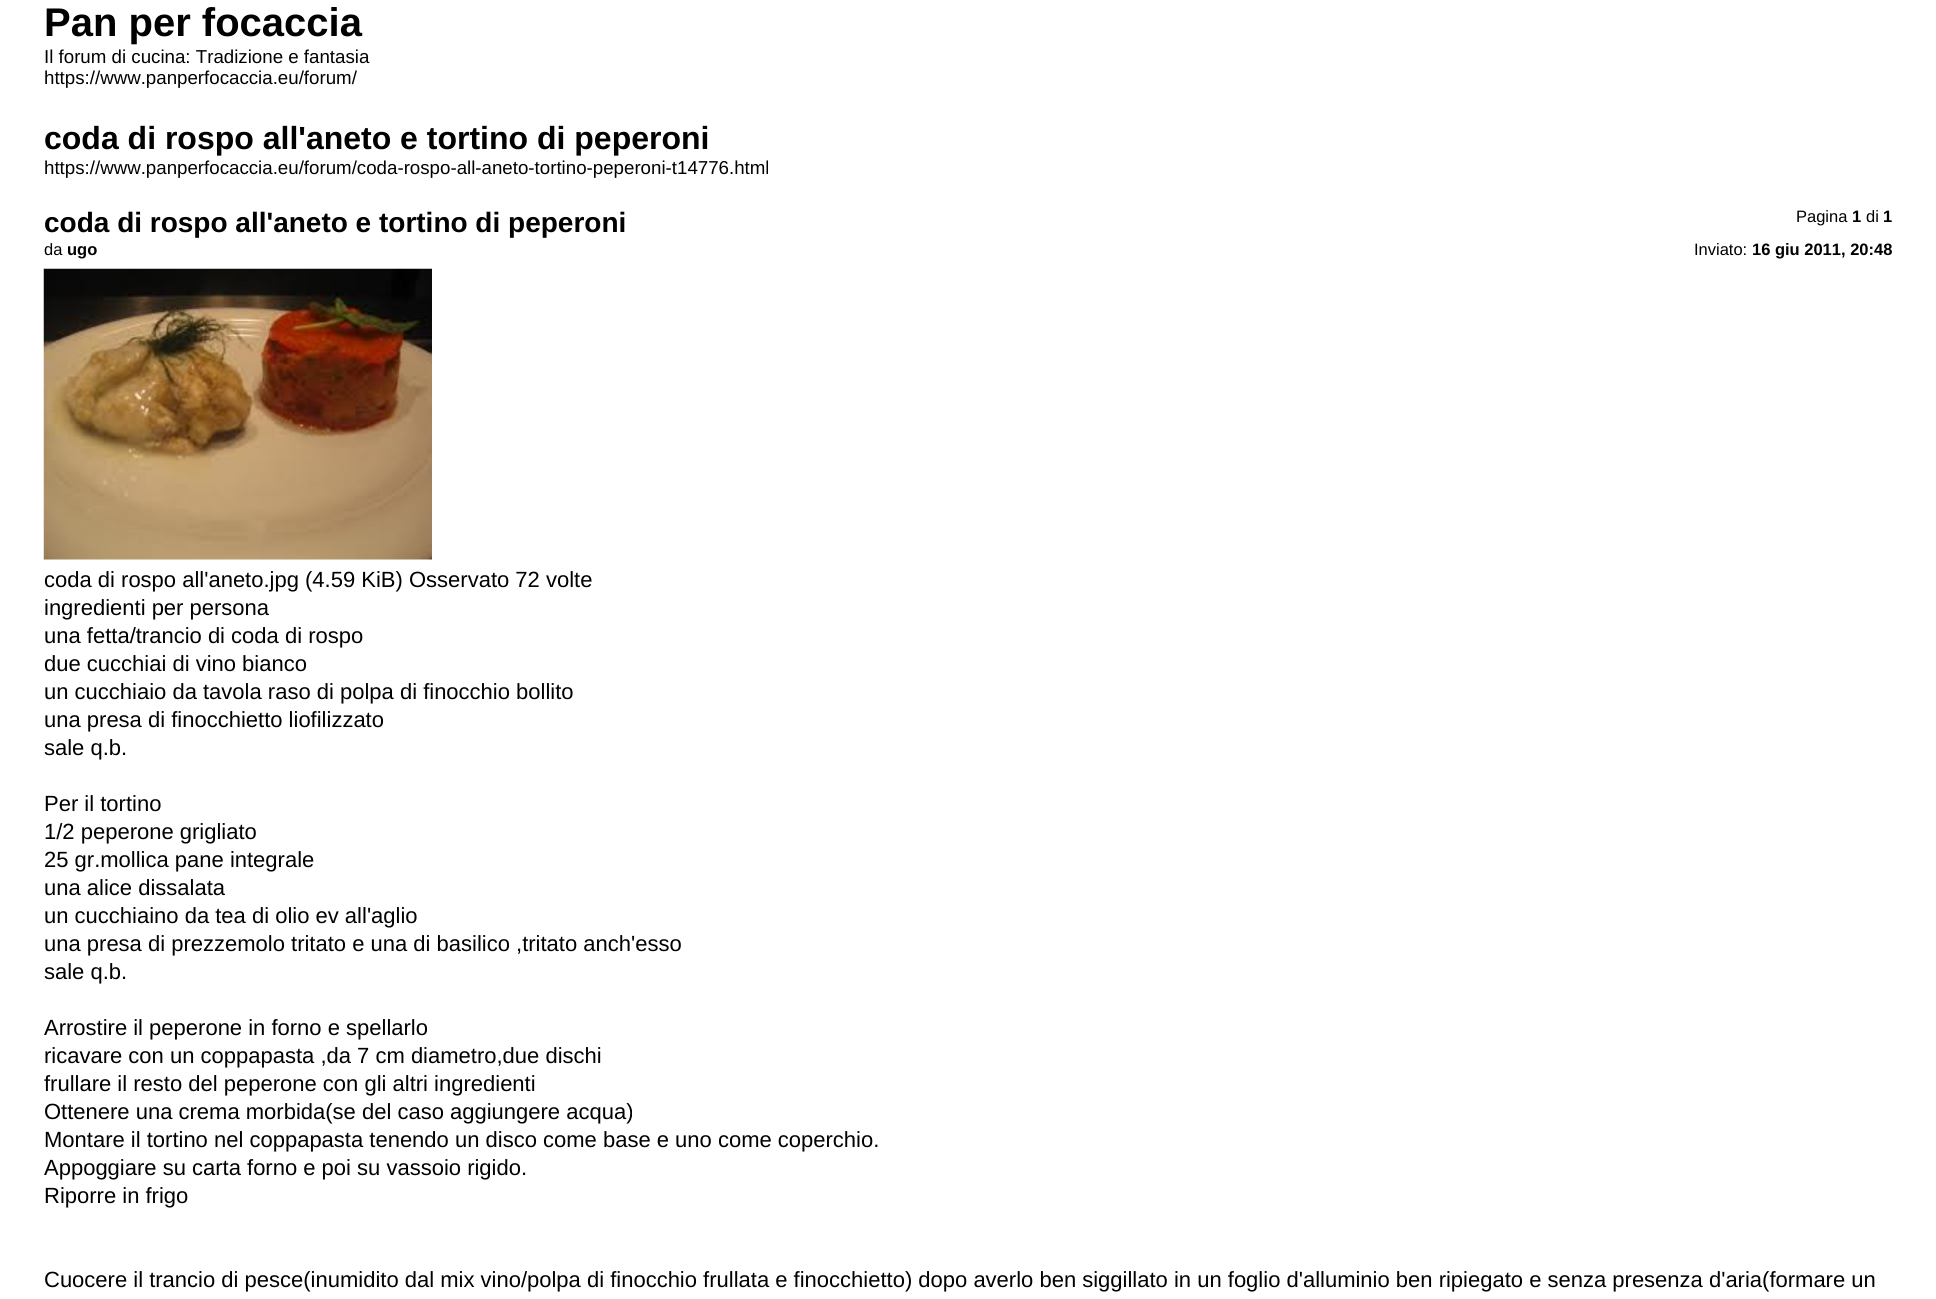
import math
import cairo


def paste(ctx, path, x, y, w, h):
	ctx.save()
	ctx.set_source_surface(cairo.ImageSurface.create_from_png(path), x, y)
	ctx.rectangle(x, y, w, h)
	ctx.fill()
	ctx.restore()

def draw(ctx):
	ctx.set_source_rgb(1, 1, 1)
	ctx.paint()
	ctx.select_font_face('Liberation Sans', cairo.FONT_SLANT_NORMAL, cairo.FONT_WEIGHT_BOLD)
	ctx.set_font_size(40)
	ctx.set_source_rgb(0, 0, 0)
	ctx.move_to(44, 36)
	ctx.show_text('Pan per focaccia')
	ctx.select_font_face('Liberation Sans')
	ctx.set_font_size(18.7)
	ctx.move_to(44, 63)
	ctx.show_text('Il forum di cucina: Tradizione e fantasia')
	ctx.move_to(44, 84)
	ctx.show_text('https://www.panperfocaccia.eu/forum/')
	ctx.select_font_face('Liberation Sans', cairo.FONT_SLANT_NORMAL, cairo.FONT_WEIGHT_BOLD)
	ctx.set_font_size(32)
	ctx.move_to(44, 149)
	ctx.show_text('coda di rospo all\'aneto e tortino di peperoni')
	ctx.select_font_face('Liberation Sans')
	ctx.set_font_size(18.7)
	ctx.move_to(44, 174)
	ctx.show_text('https://www.panperfocaccia.eu/forum/coda-rospo-all-aneto-tortino-peperoni-t14776.html')
	ctx.set_font_size(16.5)
	ctx.move_to(1796, 222)
	ctx.show_text('Pagina')
	ctx.select_font_face('Liberation Sans', cairo.FONT_SLANT_NORMAL, cairo.FONT_WEIGHT_BOLD)
	ctx.move_to(1852, 222)
	ctx.show_text('1')
	ctx.select_font_face('Liberation Sans')
	ctx.move_to(1866, 222)
	ctx.show_text('di')
	ctx.select_font_face('Liberation Sans', cairo.FONT_SLANT_NORMAL, cairo.FONT_WEIGHT_BOLD)
	ctx.move_to(1883, 222)
	ctx.show_text('1')
	ctx.set_font_size(28)
	ctx.move_to(44, 232)
	ctx.show_text('coda di rospo all\'aneto e tortino di peperoni')
	ctx.select_font_face('Liberation Sans')
	ctx.set_font_size(16.5)
	ctx.move_to(44, 255)
	ctx.show_text('da')
	ctx.select_font_face('Liberation Sans', cairo.FONT_SLANT_NORMAL, cairo.FONT_WEIGHT_BOLD)
	ctx.move_to(67, 255)
	ctx.show_text('ugo')
	ctx.select_font_face('Liberation Sans')
	ctx.move_to(1694, 255)
	ctx.show_text('Inviato:')
	ctx.select_font_face('Liberation Sans', cairo.FONT_SLANT_NORMAL, cairo.FONT_WEIGHT_BOLD)
	ctx.move_to(1752, 255)
	ctx.show_text('16 giu 2011, 20:48')
	paste(ctx, 'media/1.png', 43, 268, 389, 292)
	ctx.select_font_face('Liberation Sans')
	ctx.set_font_size(22)
	for x, y, s in [
		(44, 587, 'coda di rospo all\'aneto.jpg (4.59 KiB) Osservato 72 volte'),
		(44, 615, 'ingredienti per persona'),
		(44, 643, 'una fetta/trancio di coda di rospo'),
		(44, 671, 'due cucchiai di vino bianco'),
		(44, 699, 'un cucchiaio da tavola raso di polpa di finocchio bollito'),
		(44, 727, 'una presa di finocchietto liofilizzato'),
		(44, 755, 'sale q.b.'),
		(44, 811, 'Per il tortino'),
		(44, 839, '1/2 peperone grigliato'),
		(44, 867, '25 gr.mollica pane integrale'),
		(44, 895, 'una alice dissalata'),
		(44, 923, 'un cucchiaino da tea di olio ev all\'aglio'),
		(44, 951, 'una presa di prezzemolo tritato e una di basilico ,tritato anch\'esso'),
		(44, 979, 'sale q.b.'),
		(44, 1035, 'Arrostire il peperone in forno e spellarlo'),
		(44, 1063, 'ricavare con un coppapasta ,da 7 cm diametro,due dischi'),
		(44, 1091, 'frullare il resto del peperone con gli altri ingredienti'),
		(44, 1119, 'Ottenere una crema morbida(se del caso aggiungere acqua)'),
		(44, 1147, 'Montare il tortino nel coppapasta tenendo un disco come base e uno come coperchio.'),
		(44, 1175, 'Appoggiare su carta forno e poi su vassoio rigido.'),
		(44, 1203, 'Riporre in frigo'),
		(44, 1287, 'Cuocere il trancio di pesce(inumidito dal mix vino/polpa di finocchio frullata e finocchietto) dopo averlo ben siggillato in un foglio d\'alluminio ben ripiegato e senza presenza d\'aria(formare un'),
	]:
		ctx.move_to(x, y)
		ctx.show_text(s)


surface = cairo.ImageSurface(cairo.FORMAT_RGB24, 1936, 1299)
ctx = cairo.Context(surface)
options = cairo.FontOptions()
options.set_hint_metrics(cairo.HINT_METRICS_OFF)
options.set_hint_style(cairo.HINT_STYLE_NONE)
ctx.set_font_options(options)
ctx.set_miter_limit(4)
draw(ctx)
surface.write_to_png('image.png')
